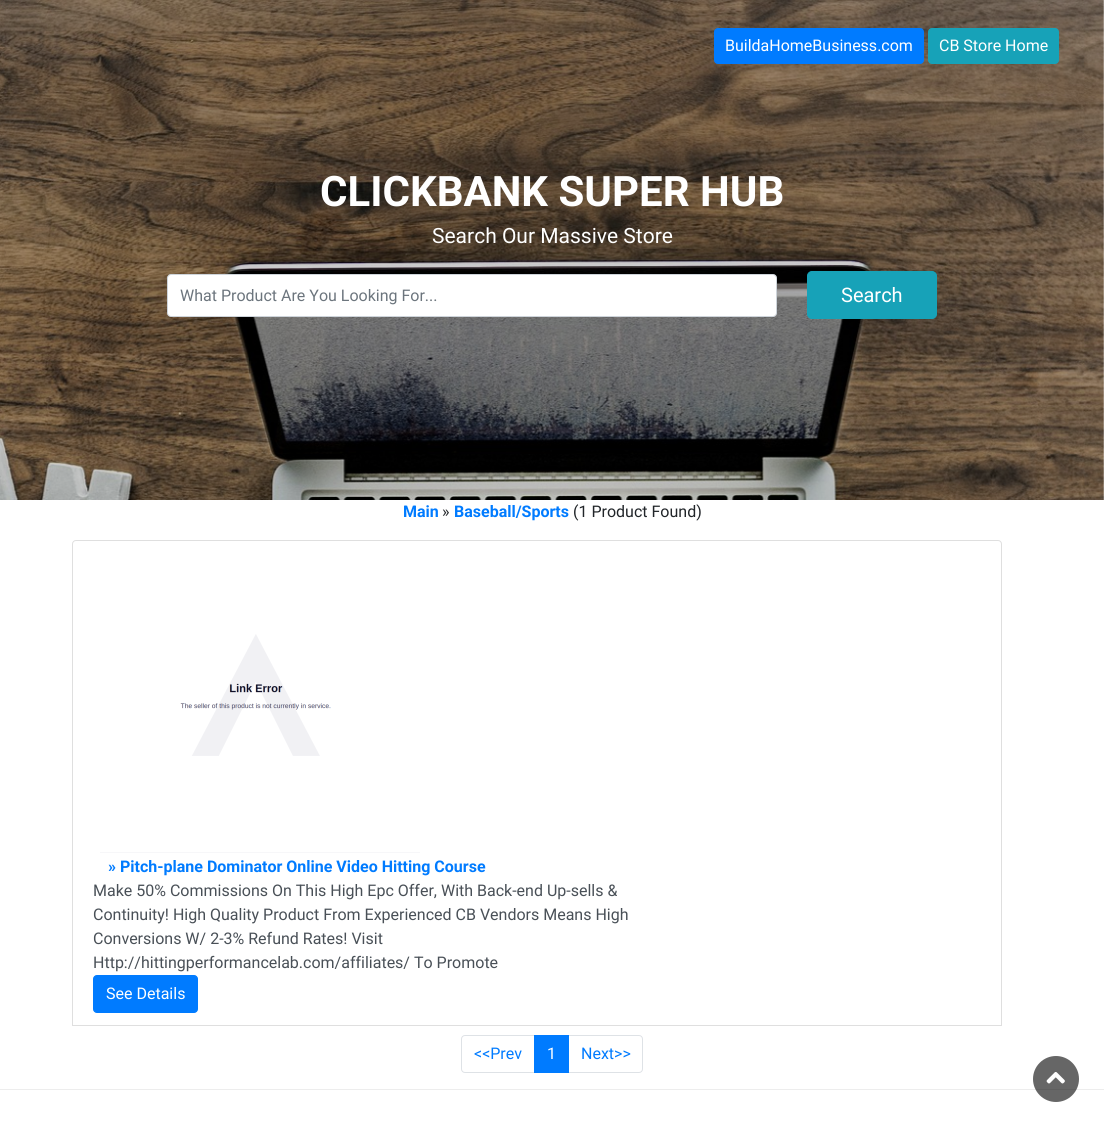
import math
import cairo


def round_path(ctx, x, y, w, h, r):
	ctx.new_sub_path()
	for i, (u, v) in enumerate([(x + w - r, y + h - r), (x + r, y + h - r), (x + r, y + r), (x + w - r, y + r)]):
		ctx.arc(u, v, r, i * math.pi / 2, (i + 1) * math.pi / 2)
	ctx.close_path()

def paste(ctx, path, x, y, w, h):
	ctx.save()
	ctx.set_source_surface(cairo.ImageSurface.create_from_png(path), x, y)
	ctx.rectangle(x, y, w, h)
	ctx.fill()
	ctx.restore()

def draw(ctx):
	ctx.set_source_rgb(1, 1, 1)
	ctx.paint()
	paste(ctx, 'media/1.png', 0, 0, 1104, 500)
	ctx.set_source_rgb(0, 0.482, 1)
	round_path(ctx, 714.5, 28.5, 209, 35, 3.5)
	ctx.fill_preserve()
	ctx.set_line_width(1)
	ctx.stroke()
	ctx.select_font_face('Roboto')
	ctx.set_font_size(16)
	ctx.set_source_rgb(1, 1, 1)
	ctx.move_to(725, 51)
	ctx.show_text('BuildaHomeBusiness.com')
	ctx.set_source_rgb(0.09, 0.635, 0.722)
	round_path(ctx, 928.5, 28.5, 130, 35, 3.5)
	ctx.fill_preserve()
	ctx.stroke()
	ctx.set_source_rgb(1, 1, 1)
	ctx.move_to(939, 51)
	ctx.show_text('CB Store Home')
	ctx.select_font_face('Roboto', cairo.FONT_SLANT_NORMAL, cairo.FONT_WEIGHT_BOLD)
	ctx.set_font_size(42)
	ctx.move_to(320, 206)
	ctx.show_text('CLICKBANK SUPER HUB')
	ctx.select_font_face('Roboto')
	ctx.set_font_size(21)
	ctx.move_to(432, 243)
	ctx.show_text('Search Our Massive Store')
	round_path(ctx, 167.5, 274.5, 609, 42, 3.5)
	ctx.fill_preserve()
	ctx.set_source_rgb(0.808, 0.831, 0.855)
	ctx.stroke()
	ctx.set_font_size(16)
	ctx.set_source_rgb(0.424, 0.459, 0.49)
	ctx.move_to(180, 301)
	ctx.show_text('What Product Are You Looking For...')
	ctx.set_source_rgb(0.09, 0.635, 0.722)
	round_path(ctx, 807.5, 271.5, 129, 47, 4.5)
	ctx.fill_preserve()
	ctx.stroke()
	ctx.set_font_size(20)
	ctx.set_source_rgb(1, 1, 1)
	ctx.move_to(841, 302)
	ctx.show_text('Search')
	ctx.select_font_face('Roboto', cairo.FONT_SLANT_NORMAL, cairo.FONT_WEIGHT_BOLD)
	ctx.set_font_size(16)
	ctx.set_source_rgb(0, 0.482, 1)
	ctx.move_to(403, 517)
	ctx.show_text('Main')
	ctx.select_font_face('Roboto')
	ctx.set_source_rgb(0.129, 0.145, 0.161)
	ctx.move_to(442, 517)
	ctx.show_text('»')
	ctx.select_font_face('Roboto', cairo.FONT_SLANT_NORMAL, cairo.FONT_WEIGHT_BOLD)
	ctx.set_source_rgb(0, 0.482, 1)
	ctx.move_to(454, 517)
	ctx.show_text('Baseball/Sports')
	ctx.select_font_face('Roboto')
	ctx.set_source_rgb(0.129, 0.145, 0.161)
	ctx.move_to(573, 517)
	ctx.show_text('(1 Product Found)')
	ctx.new_path()
	ctx.move_to(76, 540.5)
	ctx.line_to(998, 540.5)
	ctx.curve_to(1000, 540.5, 1001.5, 542, 1001.5, 544)
	ctx.line_to(1001.5, 1025.5)
	ctx.line_to(72.5, 1025.5)
	ctx.line_to(72.5, 544)
	ctx.curve_to(72.5, 542, 74, 540.5, 76, 540.5)
	ctx.close_path()
	ctx.set_source_rgb(0.875, 0.875, 0.875)
	ctx.stroke()
	paste(ctx, 'media/2.png', 100, 634, 320, 219)
	ctx.select_font_face('Roboto', cairo.FONT_SLANT_NORMAL, cairo.FONT_WEIGHT_BOLD)
	ctx.set_source_rgb(0, 0.482, 1)
	ctx.move_to(108, 872)
	ctx.show_text('» Pitch-plane Dominator Online Video Hitting Course')
	ctx.select_font_face('Roboto')
	ctx.set_source_rgb(0.286, 0.314, 0.341)
	for x, y, s in [
		(93, 896, 'Make 50% Commissions On This High Epc Offer, With Back-end Up-sells &'),
		(93, 920, 'Continuity! High Quality Product From Experienced CB Vendors Means High'),
		(93, 944, 'Conversions W/ 2-3% Refund Rates! Visit'),
		(93, 968, 'Http://hittingperformancelab.com/affiliates/ To Promote'),
	]:
		ctx.move_to(x, y)
		ctx.show_text(s)
	ctx.set_source_rgb(0, 0.482, 1)
	round_path(ctx, 93.5, 975.5, 104, 37, 3.5)
	ctx.fill_preserve()
	ctx.stroke()
	ctx.set_source_rgb(1, 1, 1)
	ctx.move_to(106, 999)
	ctx.show_text('See Details')
	ctx.new_path()
	ctx.move_to(465, 1035.5)
	ctx.line_to(534.5, 1035.5)
	ctx.line_to(534.5, 1072.5)
	ctx.line_to(465, 1072.5)
	ctx.curve_to(463, 1072.5, 461.5, 1071, 461.5, 1069)
	ctx.line_to(461.5, 1039)
	ctx.curve_to(461.5, 1037, 463, 1035.5, 465, 1035.5)
	ctx.close_path()
	ctx.set_source_rgb(0.871, 0.886, 0.902)
	ctx.stroke()
	ctx.set_source_rgb(0, 0.482, 1)
	ctx.move_to(474, 1059)
	ctx.show_text('<<Prev')
	ctx.new_path()
	ctx.move_to(568.5, 1035.5)
	ctx.line_to(639, 1035.5)
	ctx.curve_to(641, 1035.5, 642.5, 1037, 642.5, 1039)
	ctx.line_to(642.5, 1069)
	ctx.curve_to(642.5, 1071, 641, 1072.5, 639, 1072.5)
	ctx.line_to(568.5, 1072.5)
	ctx.close_path()
	ctx.set_source_rgb(0.871, 0.886, 0.902)
	ctx.stroke()
	ctx.set_source_rgb(0, 0.482, 1)
	ctx.rectangle(534, 1035, 35, 38)
	ctx.fill()
	ctx.set_source_rgb(1, 1, 1)
	ctx.move_to(547, 1059)
	ctx.show_text('1')
	ctx.set_source_rgb(0, 0.482, 1)
	ctx.move_to(581, 1059)
	ctx.show_text('Next>>')
	ctx.set_source_rgb(0.929, 0.929, 0.929)
	ctx.rectangle(0, 1089, 1104, 1)
	ctx.fill()
	ctx.set_source_rgba(0, 0, 0, 0.6)
	ctx.arc(1056, 1079, 23, 0, 2 * math.pi)
	ctx.fill()
	paste(ctx, 'media/3.png', 1046, 1072, 19, 12)


surface = cairo.ImageSurface(cairo.FORMAT_RGB24, 1104, 1127)
ctx = cairo.Context(surface)
options = cairo.FontOptions()
options.set_hint_metrics(cairo.HINT_METRICS_OFF)
options.set_hint_style(cairo.HINT_STYLE_NONE)
ctx.set_font_options(options)
ctx.set_miter_limit(4)
draw(ctx)
surface.write_to_png('image.png')
